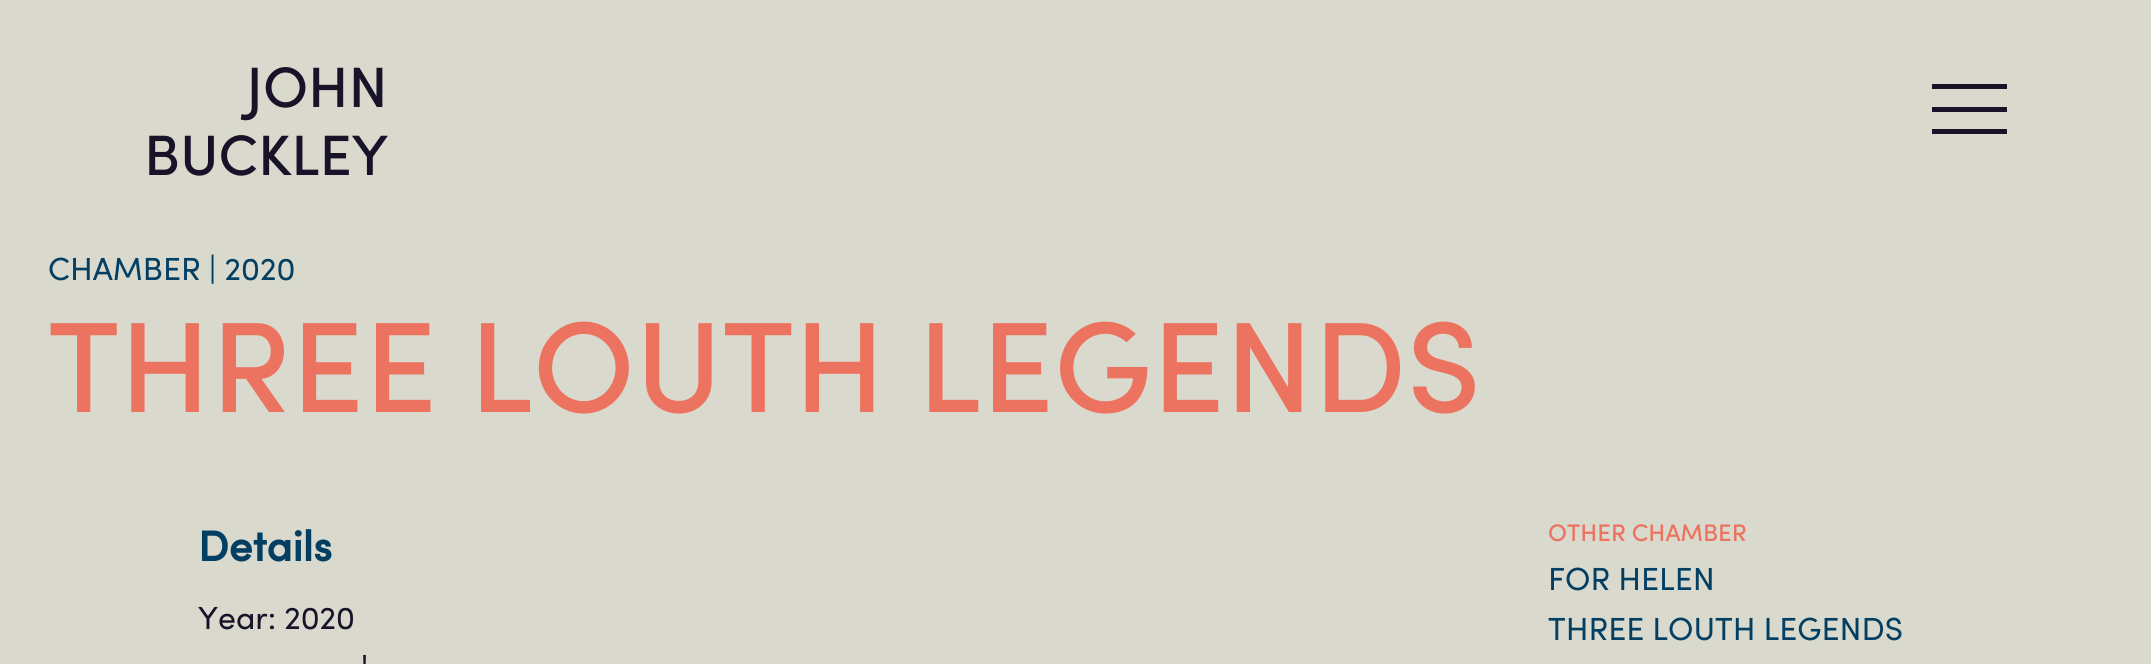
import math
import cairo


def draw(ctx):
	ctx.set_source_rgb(0.851, 0.851, 0.804)
	ctx.paint()
	ctx.select_font_face('Sofia Medium')
	ctx.set_font_size(57)
	ctx.set_source_rgb(0.094, 0.078, 0.157)
	ctx.move_to(246, 107)
	ctx.show_text('JOHN')
	ctx.move_to(144, 175)
	ctx.show_text('BUCKLEY')
	ctx.rectangle(1932, 84, 75, 5)
	ctx.rectangle(1932, 107, 75, 5)
	ctx.rectangle(1932, 129, 75, 5)
	ctx.fill()
	ctx.select_font_face('Sofia')
	ctx.set_font_size(32)
	ctx.set_source_rgb(0.012, 0.247, 0.388)
	ctx.move_to(48, 280)
	ctx.show_text('CHAMBER | 2020')
	ctx.select_font_face('Sofia Medium')
	ctx.set_font_size(129)
	ctx.set_source_rgb(0.922, 0.451, 0.376)
	ctx.move_to(48, 412)
	ctx.show_text('THREE LOUTH LEGENDS')
	ctx.select_font_face('Sofia', cairo.FONT_SLANT_NORMAL, cairo.FONT_WEIGHT_BOLD)
	ctx.set_font_size(42.5)
	ctx.set_source_rgb(0.012, 0.247, 0.388)
	ctx.move_to(198, 561)
	ctx.show_text('Details')
	ctx.select_font_face('Sofia')
	ctx.set_font_size(32)
	ctx.set_source_rgb(0.094, 0.078, 0.157)
	ctx.move_to(198, 629)
	ctx.show_text('Year: 2020')
	ctx.move_to(361, 677)
	ctx.show_text('\'')
	ctx.select_font_face('Sofia Medium')
	ctx.set_font_size(24)
	ctx.set_source_rgb(0.922, 0.451, 0.376)
	ctx.move_to(1548, 541)
	ctx.show_text('OTHER CHAMBER')
	ctx.select_font_face('Sofia')
	ctx.set_font_size(32)
	ctx.set_source_rgb(0.012, 0.247, 0.388)
	ctx.move_to(1548, 590)
	ctx.show_text('FOR HELEN')
	ctx.move_to(1548, 640)
	ctx.show_text('THREE LOUTH LEGENDS')


surface = cairo.ImageSurface(cairo.FORMAT_RGB24, 2151, 664)
ctx = cairo.Context(surface)
options = cairo.FontOptions()
options.set_hint_metrics(cairo.HINT_METRICS_OFF)
options.set_hint_style(cairo.HINT_STYLE_NONE)
ctx.set_font_options(options)
ctx.set_miter_limit(4)
draw(ctx)
surface.write_to_png('image.png')
